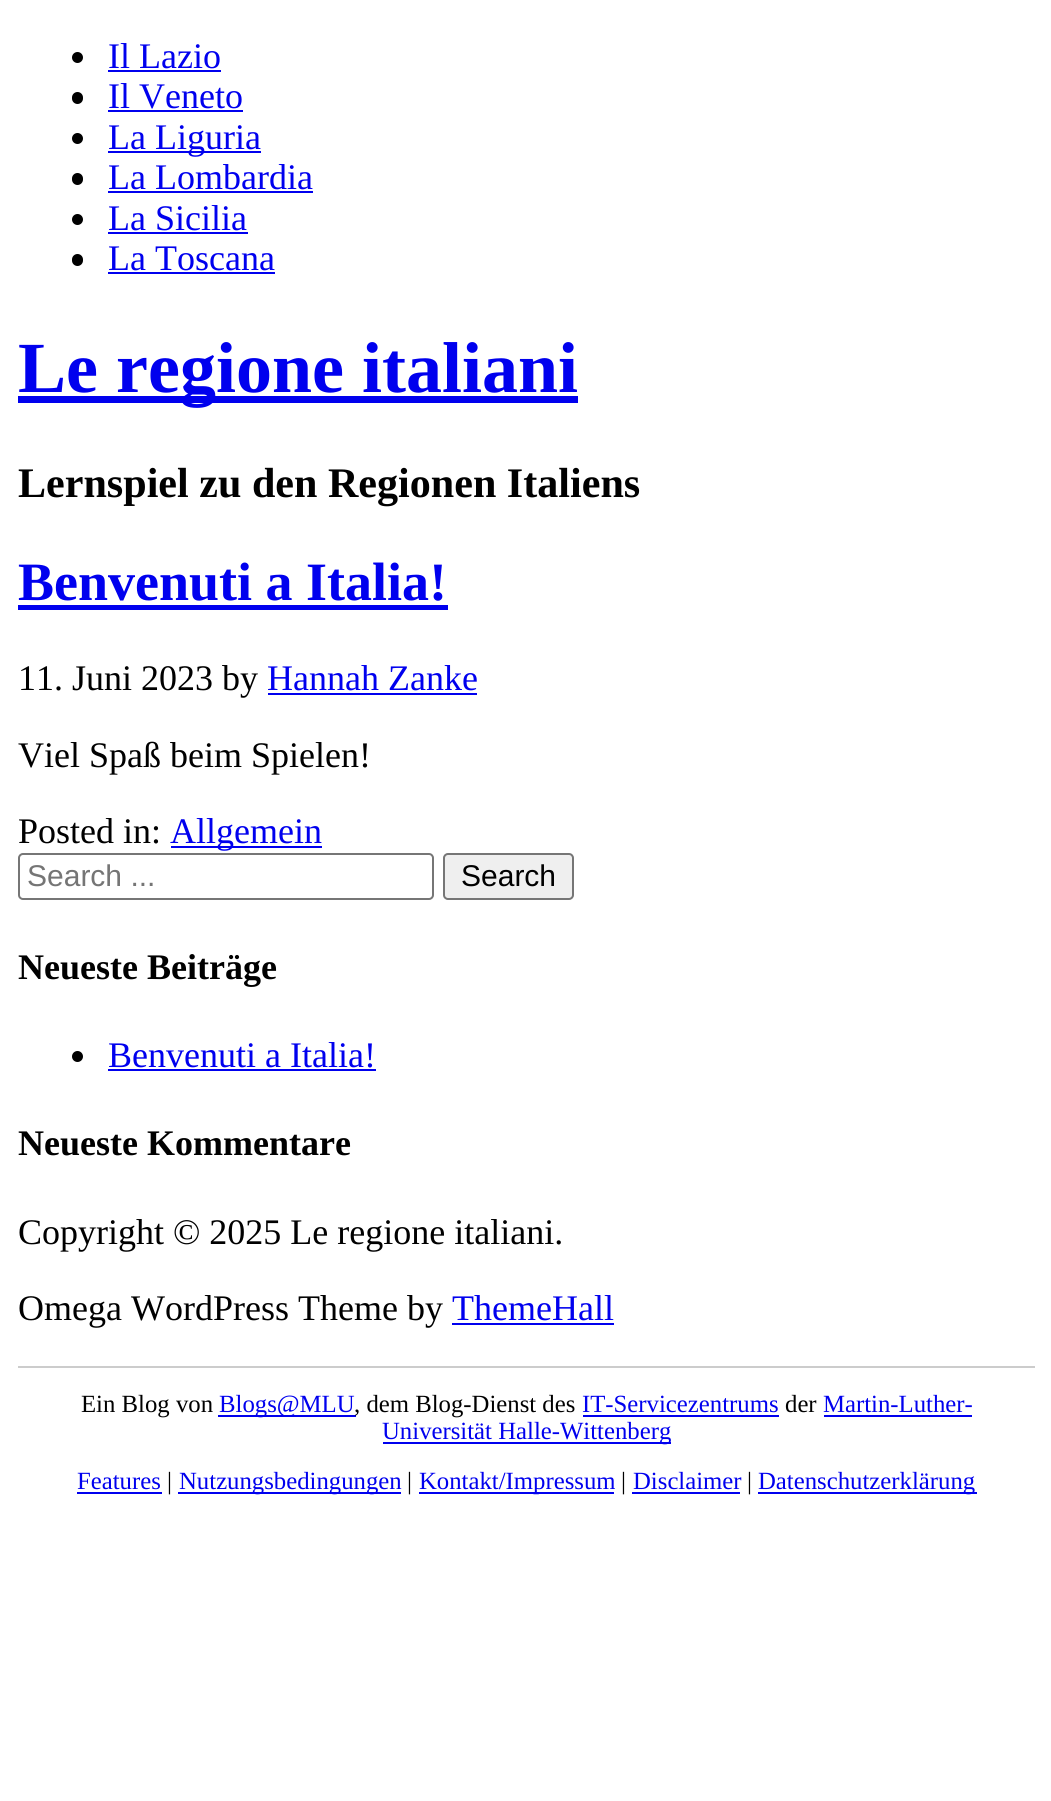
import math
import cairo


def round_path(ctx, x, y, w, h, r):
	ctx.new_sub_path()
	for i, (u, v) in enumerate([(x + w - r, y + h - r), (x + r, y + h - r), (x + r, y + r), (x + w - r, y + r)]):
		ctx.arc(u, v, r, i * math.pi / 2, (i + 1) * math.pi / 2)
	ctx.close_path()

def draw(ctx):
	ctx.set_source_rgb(1, 1, 1)
	ctx.paint()
	ctx.set_source_rgb(0, 0, 0)
	ctx.arc(77.5, 57.5, 5.5, 0, 2 * math.pi)
	ctx.fill()
	ctx.select_font_face('Liberation Serif')
	ctx.set_font_size(36)
	ctx.set_source_rgb(0, 0, 0.933)
	ctx.move_to(108, 68)
	ctx.show_text('Il Lazio')
	ctx.rectangle(108, 70, 113, 2)
	ctx.fill()
	ctx.set_source_rgb(0, 0, 0)
	round_path(ctx, 72, 92, 11, 12, 5.5)
	ctx.fill()
	ctx.set_source_rgb(0, 0, 0.933)
	ctx.move_to(108, 108)
	ctx.show_text('Il Veneto')
	ctx.rectangle(108, 110, 135, 2)
	ctx.fill()
	ctx.set_source_rgb(0, 0, 0)
	ctx.arc(77.5, 138.5, 5.5, 0, 2 * math.pi)
	ctx.fill()
	ctx.set_source_rgb(0, 0, 0.933)
	ctx.rectangle(108, 151, 153, 2)
	ctx.fill()
	ctx.move_to(108, 149)
	ctx.show_text('La Liguria')
	ctx.set_source_rgb(0, 0, 0)
	round_path(ctx, 72, 173, 11, 12, 5.5)
	ctx.fill()
	ctx.set_source_rgb(0, 0, 0.933)
	ctx.move_to(108, 189)
	ctx.show_text('La Lombardia')
	ctx.rectangle(108, 191, 205, 2)
	ctx.fill()
	ctx.set_source_rgb(0, 0, 0)
	ctx.arc(77.5, 219.5, 5.5, 0, 2 * math.pi)
	ctx.fill()
	ctx.set_source_rgb(0, 0, 0.933)
	ctx.move_to(108, 230)
	ctx.show_text('La Sicilia')
	ctx.rectangle(108, 232, 140, 2)
	ctx.fill()
	ctx.set_source_rgb(0, 0, 0)
	round_path(ctx, 72, 254, 11, 12, 5.5)
	ctx.fill()
	ctx.set_source_rgb(0, 0, 0.933)
	ctx.move_to(108, 270)
	ctx.show_text('La Toscana')
	ctx.rectangle(108, 272, 167, 2)
	ctx.fill()
	ctx.rectangle(18, 396, 560, 7)
	ctx.fill()
	ctx.select_font_face('Liberation Serif', cairo.FONT_SLANT_NORMAL, cairo.FONT_WEIGHT_BOLD)
	ctx.set_font_size(72)
	ctx.move_to(18, 392)
	ctx.show_text('Le regione italiani')
	ctx.set_font_size(42.1)
	ctx.set_source_rgb(0, 0, 0)
	ctx.move_to(18, 497)
	ctx.show_text('Lernspiel zu den Regionen Italiens')
	ctx.set_font_size(54)
	ctx.set_source_rgb(0, 0, 0.933)
	ctx.move_to(18, 600)
	ctx.show_text('Benvenuti a Italia!')
	ctx.rectangle(18, 605, 430, 5)
	ctx.fill()
	ctx.select_font_face('Liberation Serif')
	ctx.set_font_size(36)
	ctx.set_source_rgb(0, 0, 0)
	ctx.move_to(18, 690)
	ctx.show_text('11. Juni 2023 by')
	ctx.set_source_rgb(0, 0, 0.933)
	ctx.move_to(267, 690)
	ctx.show_text('Hannah Zanke')
	ctx.rectangle(268, 693, 209, 2)
	ctx.fill()
	ctx.set_source_rgb(0, 0, 0)
	ctx.move_to(18, 767)
	ctx.show_text('Viel Spaß beim Spielen!')
	ctx.move_to(18, 843)
	ctx.show_text('Posted in:')
	ctx.set_source_rgb(0, 0, 0.933)
	ctx.rectangle(171, 846, 151, 2)
	ctx.fill()
	ctx.move_to(170, 843)
	ctx.show_text('Allgemein')
	round_path(ctx, 19, 854, 414, 45, 4)
	ctx.set_source_rgb(0.463, 0.463, 0.463)
	ctx.stroke()
	ctx.select_font_face('Liberation Sans')
	ctx.set_font_size(30)
	ctx.set_source_rgb(0.459, 0.459, 0.459)
	ctx.move_to(27, 886)
	ctx.show_text('Search ...')
	ctx.set_source_rgb(0.937, 0.937, 0.937)
	round_path(ctx, 444, 854, 129, 45, 4)
	ctx.fill_preserve()
	ctx.set_source_rgb(0.463, 0.463, 0.463)
	ctx.stroke()
	ctx.set_source_rgb(0, 0, 0)
	ctx.move_to(461, 886)
	ctx.show_text('Search')
	ctx.select_font_face('Liberation Serif', cairo.FONT_SLANT_NORMAL, cairo.FONT_WEIGHT_BOLD)
	ctx.set_font_size(36)
	ctx.move_to(18, 979)
	ctx.show_text('Neueste Beiträge')
	ctx.new_path()
	ctx.arc(77.5, 1056.5, 5.5, 0, 2 * math.pi)
	ctx.fill()
	ctx.select_font_face('Liberation Serif')
	ctx.set_source_rgb(0, 0, 0.933)
	ctx.move_to(108, 1067)
	ctx.show_text('Benvenuti a Italia!')
	ctx.rectangle(108, 1069, 268, 2)
	ctx.fill()
	ctx.select_font_face('Liberation Serif', cairo.FONT_SLANT_NORMAL, cairo.FONT_WEIGHT_BOLD)
	ctx.set_source_rgb(0, 0, 0)
	ctx.move_to(18, 1155)
	ctx.show_text('Neueste Kommentare')
	ctx.select_font_face('Liberation Serif')
	ctx.move_to(18, 1244)
	ctx.show_text('Copyright © 2025 Le regione italiani.')
	ctx.move_to(18, 1320)
	ctx.show_text('Omega WordPress Theme by')
	ctx.set_source_rgb(0, 0, 0.933)
	ctx.move_to(452, 1320)
	ctx.show_text('ThemeHall')
	ctx.rectangle(452, 1323, 162, 2)
	ctx.fill()
	ctx.set_source_rgb(0.8, 0.8, 0.8)
	ctx.rectangle(18, 1366, 1017, 2)
	ctx.fill()
	ctx.set_font_size(24.75)
	ctx.set_source_rgb(0, 0, 0)
	ctx.move_to(81, 1412)
	ctx.show_text('Ein Blog von')
	ctx.set_source_rgb(0, 0, 0.933)
	ctx.rectangle(218, 1415, 138, 2)
	ctx.fill()
	ctx.move_to(219, 1412)
	ctx.show_text('Blogs@MLU')
	ctx.set_source_rgb(0, 0, 0)
	ctx.move_to(354, 1412)
	ctx.show_text(', dem Blog-Dienst des')
	ctx.set_source_rgb(0, 0, 0.933)
	ctx.move_to(582, 1412)
	ctx.show_text('IT-Servicezentrums')
	ctx.rectangle(583, 1415, 196, 2)
	ctx.fill()
	ctx.set_source_rgb(0, 0, 0)
	ctx.move_to(785, 1412)
	ctx.show_text('der')
	ctx.set_source_rgb(0, 0, 0.933)
	ctx.move_to(823, 1412)
	ctx.show_text('Martin-Luther-')
	ctx.rectangle(824, 1415, 148, 2)
	ctx.fill()
	ctx.rectangle(383, 1442, 288, 2)
	ctx.fill()
	ctx.move_to(382, 1439)
	ctx.show_text('Universität Halle-Wittenberg')
	ctx.move_to(77, 1489)
	ctx.show_text('Features')
	ctx.rectangle(77, 1492, 85, 2)
	ctx.fill()
	ctx.set_source_rgb(0, 0, 0)
	ctx.move_to(167, 1489)
	ctx.show_text('|')
	ctx.set_source_rgb(0, 0, 0.933)
	ctx.rectangle(178, 1492, 223, 2)
	ctx.fill()
	ctx.move_to(179, 1489)
	ctx.show_text('Nutzungsbedingungen')
	ctx.set_source_rgb(0, 0, 0)
	ctx.move_to(407, 1489)
	ctx.show_text('|')
	ctx.set_source_rgb(0, 0, 0.933)
	ctx.rectangle(419, 1492, 195, 2)
	ctx.fill()
	ctx.move_to(419, 1489)
	ctx.show_text('Kontakt/Impressum')
	ctx.set_source_rgb(0, 0, 0)
	ctx.move_to(621, 1489)
	ctx.show_text('|')
	ctx.set_source_rgb(0, 0, 0.933)
	ctx.move_to(633, 1489)
	ctx.show_text('Disclaimer')
	ctx.rectangle(632, 1492, 108, 2)
	ctx.fill()
	ctx.set_source_rgb(0, 0, 0)
	ctx.move_to(747, 1489)
	ctx.show_text('|')
	ctx.set_source_rgb(0, 0, 0.933)
	ctx.rectangle(758, 1492, 219, 2)
	ctx.fill()
	ctx.move_to(758, 1489)
	ctx.show_text('Datenschutzerklärung')


surface = cairo.ImageSurface(cairo.FORMAT_RGB24, 1051, 1801)
ctx = cairo.Context(surface)
options = cairo.FontOptions()
options.set_hint_metrics(cairo.HINT_METRICS_OFF)
options.set_hint_style(cairo.HINT_STYLE_NONE)
ctx.set_font_options(options)
ctx.set_miter_limit(4)
draw(ctx)
surface.write_to_png('image.png')
